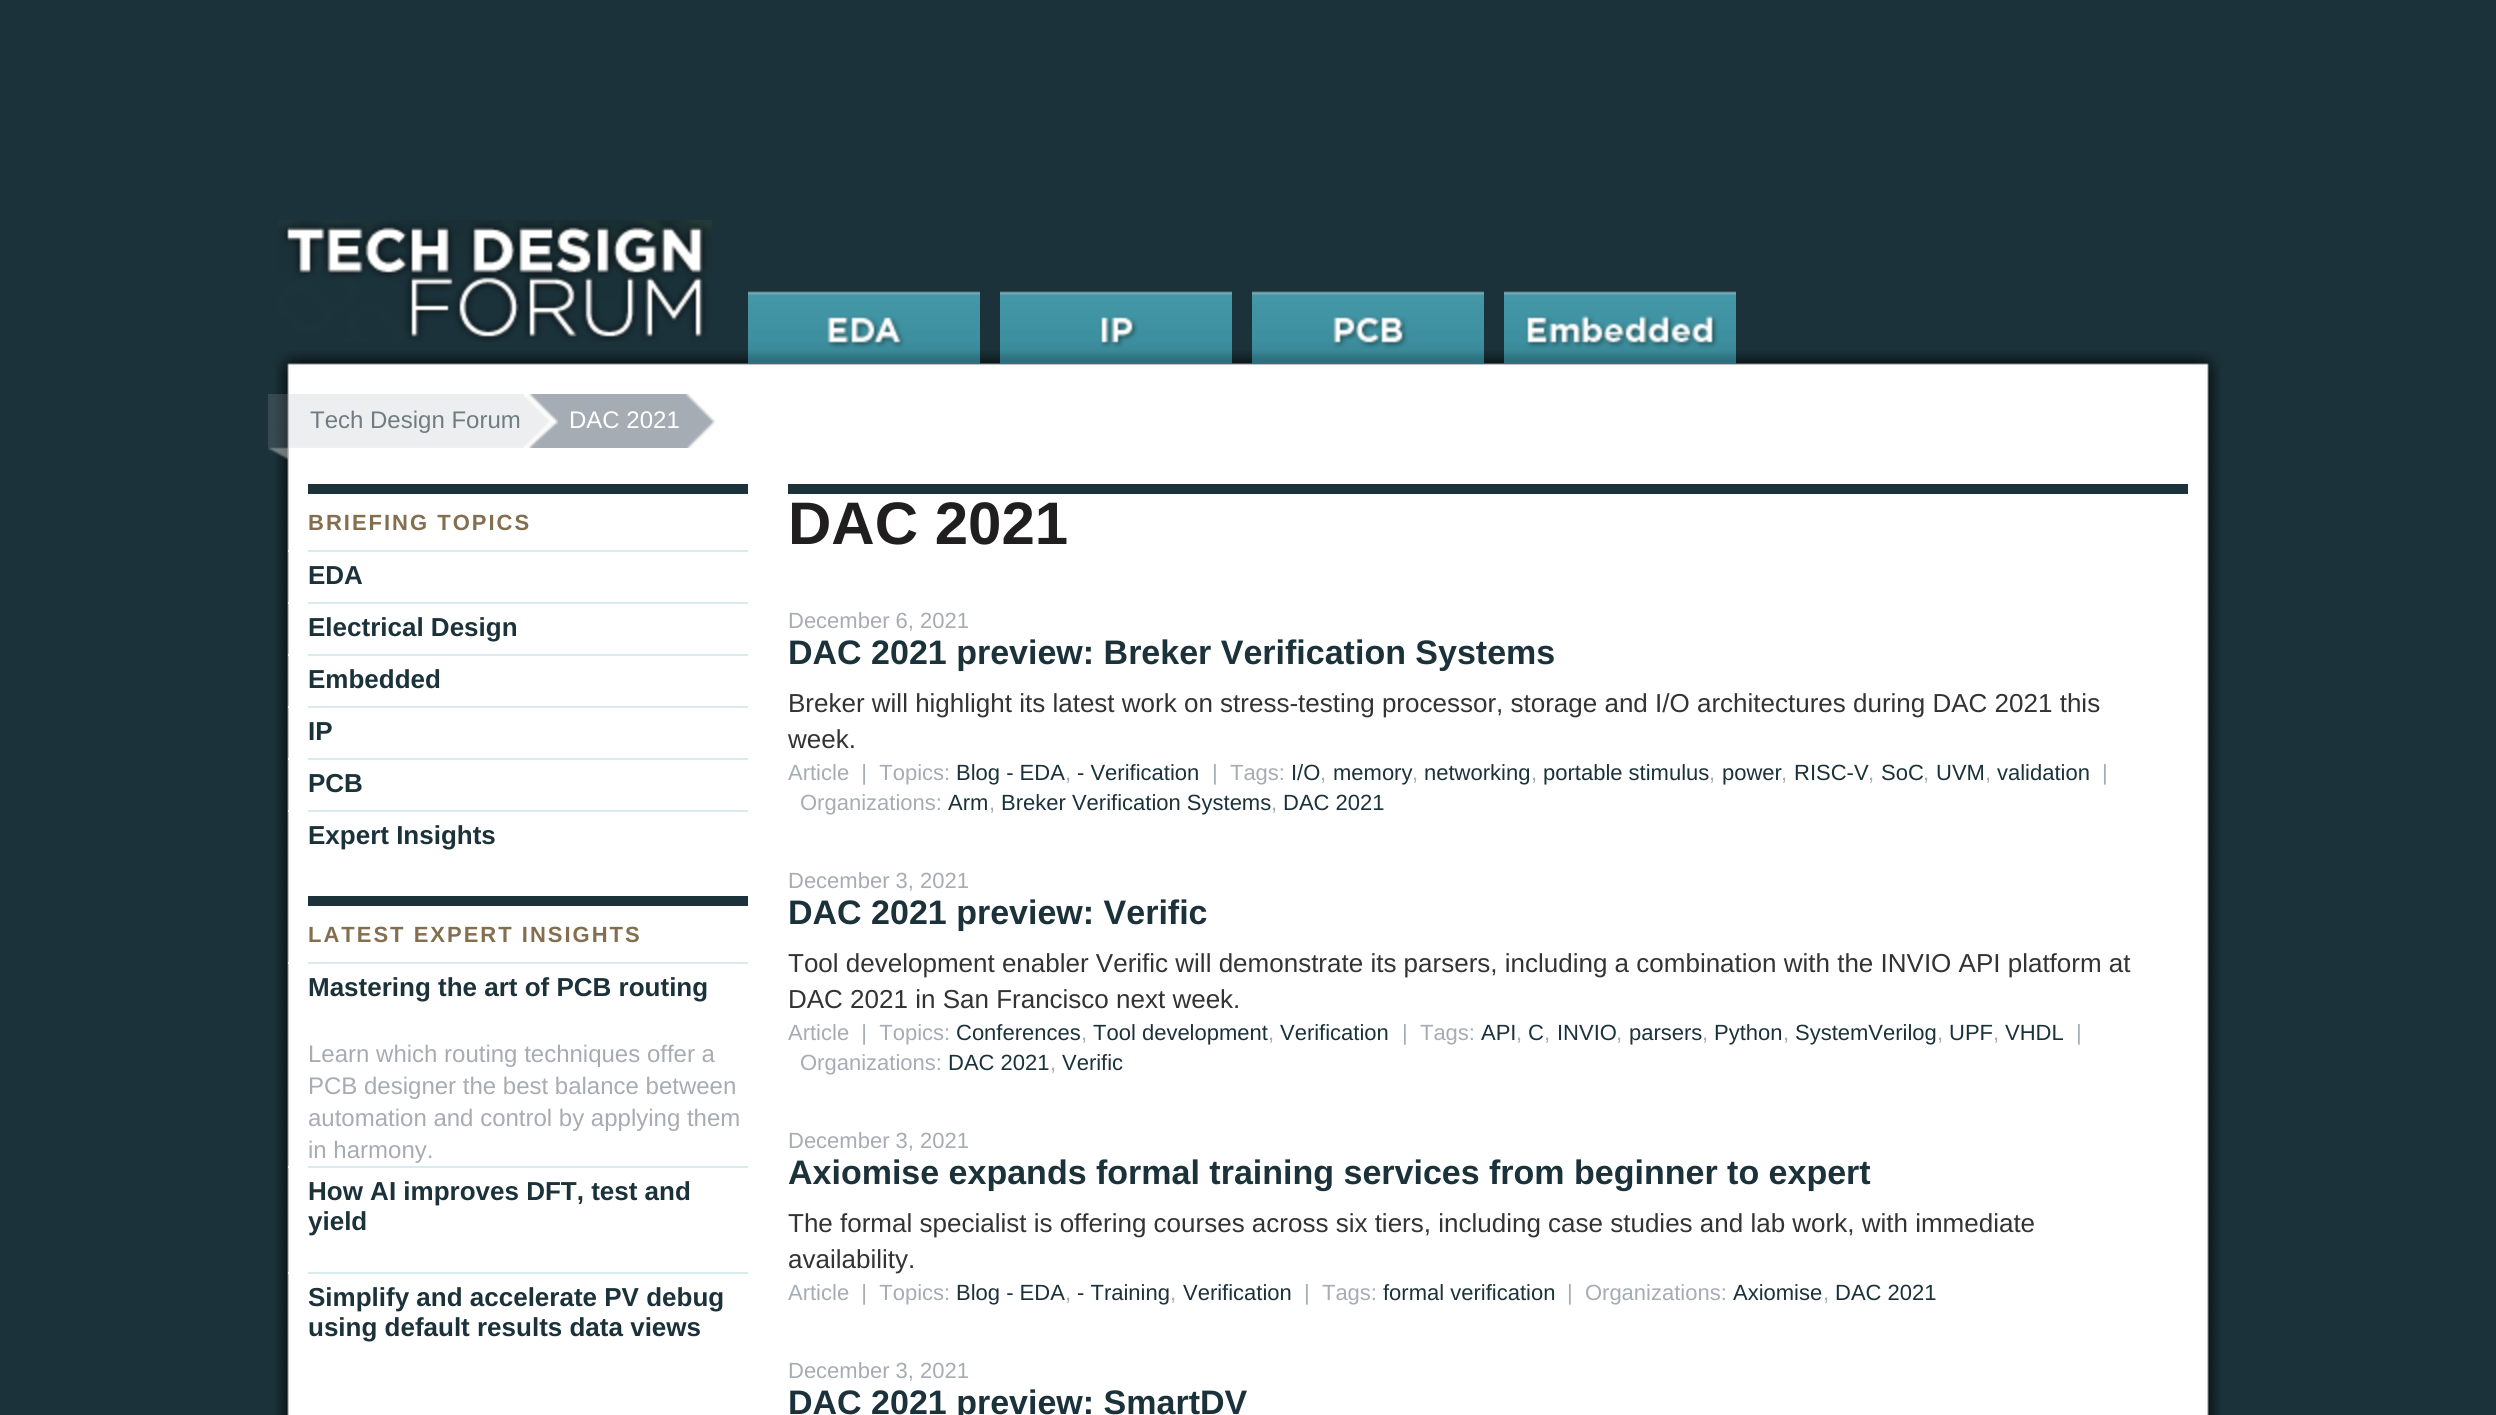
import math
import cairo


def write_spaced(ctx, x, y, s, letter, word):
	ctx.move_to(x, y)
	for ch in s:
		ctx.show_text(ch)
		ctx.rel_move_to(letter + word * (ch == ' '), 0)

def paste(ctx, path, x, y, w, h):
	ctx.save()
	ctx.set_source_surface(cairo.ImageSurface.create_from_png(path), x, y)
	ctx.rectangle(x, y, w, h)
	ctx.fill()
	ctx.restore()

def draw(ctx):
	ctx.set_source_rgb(0.106, 0.196, 0.227)
	ctx.paint()
	paste(ctx, 'media/1.png', 275, 351, 1946, 23)
	paste(ctx, 'media/2.png', 278, 220, 434, 122)
	paste(ctx, 'media/3.png', 748, 291, 232, 73)
	paste(ctx, 'media/4.png', 1000, 291, 232, 73)
	paste(ctx, 'media/5.png', 1252, 291, 232, 73)
	paste(ctx, 'media/6.png', 1504, 291, 232, 73)
	paste(ctx, 'media/7.png', 275, 374, 1946, 1041)
	paste(ctx, 'media/8.png', 268, 394, 20, 66)
	paste(ctx, 'media/9.png', 288, 394, 236, 54)
	ctx.select_font_face('Liberation Sans')
	ctx.set_font_size(24)
	ctx.set_source_rgb(0.435, 0.49, 0.514)
	ctx.move_to(310, 428)
	ctx.show_text('Tech Design Forum')
	paste(ctx, 'media/10.png', 684, 394, 32, 54)
	ctx.set_source_rgb(0.651, 0.675, 0.702)
	ctx.rectangle(558, 394, 126, 54)
	ctx.fill()
	paste(ctx, 'media/11.png', 524, 394, 34, 54)
	ctx.set_source_rgb(1, 1, 1)
	ctx.move_to(569, 428)
	ctx.show_text('DAC 2021')
	ctx.set_source_rgb(0.106, 0.196, 0.227)
	ctx.rectangle(308, 484, 440, 10)
	ctx.fill()
	ctx.select_font_face('Liberation Sans', cairo.FONT_SLANT_NORMAL, cairo.FONT_WEIGHT_BOLD)
	ctx.set_font_size(22)
	ctx.set_source_rgb(0.518, 0.431, 0.314)
	write_spaced(ctx, 308, 530, 'BRIEFING TOPICS', 2, 0)
	paste(ctx, 'media/12.png', 288, 550, 460, 2)
	ctx.set_font_size(26)
	ctx.set_source_rgb(0.106, 0.196, 0.227)
	ctx.move_to(308, 584)
	ctx.show_text('EDA')
	paste(ctx, 'media/12.png', 288, 602, 460, 2)
	ctx.move_to(308, 636)
	ctx.show_text('Electrical Design')
	paste(ctx, 'media/12.png', 288, 654, 460, 2)
	ctx.move_to(308, 688)
	ctx.show_text('Embedded')
	paste(ctx, 'media/12.png', 288, 706, 460, 2)
	ctx.move_to(308, 740)
	ctx.show_text('IP')
	paste(ctx, 'media/12.png', 288, 758, 460, 2)
	ctx.move_to(308, 792)
	ctx.show_text('PCB')
	paste(ctx, 'media/12.png', 288, 810, 460, 2)
	ctx.move_to(308, 844)
	ctx.show_text('Expert Insights')
	ctx.rectangle(308, 896, 440, 10)
	ctx.fill()
	ctx.set_font_size(22)
	ctx.set_source_rgb(0.518, 0.431, 0.314)
	write_spaced(ctx, 308, 942, 'LATEST EXPERT INSIGHTS', 2, 0)
	paste(ctx, 'media/12.png', 288, 962, 460, 2)
	ctx.set_font_size(26)
	ctx.set_source_rgb(0.106, 0.196, 0.227)
	ctx.move_to(308, 996)
	ctx.show_text('Mastering the art of PCB routing')
	ctx.select_font_face('Liberation Sans')
	ctx.set_font_size(24)
	ctx.set_source_rgb(0.651, 0.675, 0.702)
	for x, y, s in [
		(308, 1062, 'Learn which routing techniques offer a'),
		(308, 1094, 'PCB designer the best balance between'),
		(308, 1126, 'automation and control by applying them'),
		(308, 1158, 'in harmony.'),
	]:
		ctx.move_to(x, y)
		ctx.show_text(s)
	paste(ctx, 'media/12.png', 288, 1166, 460, 2)
	ctx.select_font_face('Liberation Sans', cairo.FONT_SLANT_NORMAL, cairo.FONT_WEIGHT_BOLD)
	ctx.set_font_size(26)
	ctx.set_source_rgb(0.106, 0.196, 0.227)
	ctx.move_to(308, 1200)
	ctx.show_text('How AI improves DFT, test and')
	ctx.move_to(308, 1230)
	ctx.show_text('yield')
	paste(ctx, 'media/12.png', 288, 1272, 460, 2)
	ctx.move_to(308, 1306)
	ctx.show_text('Simplify and accelerate PV debug')
	ctx.move_to(308, 1336)
	ctx.show_text('using default results data views')
	ctx.rectangle(788, 484, 1400, 10)
	ctx.fill()
	ctx.set_font_size(60)
	ctx.set_source_rgb(0.125, 0.118, 0.118)
	ctx.move_to(788, 544)
	ctx.show_text('DAC 2021')
	ctx.select_font_face('Liberation Sans')
	ctx.set_font_size(22)
	ctx.set_source_rgb(0.651, 0.675, 0.702)
	ctx.move_to(788, 628)
	ctx.show_text('December 6, 2021')
	ctx.select_font_face('Liberation Sans', cairo.FONT_SLANT_NORMAL, cairo.FONT_WEIGHT_BOLD)
	ctx.set_font_size(34)
	ctx.set_source_rgb(0.106, 0.196, 0.227)
	ctx.move_to(788, 664)
	ctx.show_text('DAC 2021 preview: Breker Verification Systems')
	ctx.select_font_face('Liberation Sans')
	ctx.set_font_size(26)
	ctx.set_source_rgb(0.2, 0.2, 0.2)
	ctx.move_to(788, 712)
	ctx.show_text('Breker will highlight its latest work on stress-testing processor, storage and I/O architectures during DAC 2021 this')
	ctx.move_to(788, 748)
	ctx.show_text('week.')
	ctx.set_font_size(22)
	ctx.set_source_rgb(0.651, 0.675, 0.702)
	ctx.move_to(788, 780)
	ctx.show_text('Article  |  Topics:')
	ctx.set_source_rgb(0.106, 0.196, 0.227)
	ctx.move_to(956, 780)
	ctx.show_text('Blog - EDA')
	ctx.set_source_rgb(0.651, 0.675, 0.702)
	ctx.move_to(1065, 780)
	ctx.show_text(',')
	ctx.set_source_rgb(0.106, 0.196, 0.227)
	ctx.move_to(1077, 780)
	ctx.show_text('- Verification')
	ctx.set_source_rgb(0.651, 0.675, 0.702)
	ctx.move_to(1212, 780)
	ctx.show_text('|  Tags:')
	ctx.set_source_rgb(0.106, 0.196, 0.227)
	ctx.move_to(1291, 780)
	ctx.show_text('I/O')
	ctx.set_source_rgb(0.651, 0.675, 0.702)
	ctx.move_to(1320, 780)
	ctx.show_text(',')
	ctx.set_source_rgb(0.106, 0.196, 0.227)
	ctx.move_to(1333, 780)
	ctx.show_text('memory')
	ctx.set_source_rgb(0.651, 0.675, 0.702)
	ctx.move_to(1412, 780)
	ctx.show_text(',')
	ctx.set_source_rgb(0.106, 0.196, 0.227)
	ctx.move_to(1424, 780)
	ctx.show_text('networking')
	ctx.set_source_rgb(0.651, 0.675, 0.702)
	ctx.move_to(1531, 780)
	ctx.show_text(',')
	ctx.set_source_rgb(0.106, 0.196, 0.227)
	ctx.move_to(1543, 780)
	ctx.show_text('portable stimulus')
	ctx.set_source_rgb(0.651, 0.675, 0.702)
	ctx.move_to(1709, 780)
	ctx.show_text(',')
	ctx.set_source_rgb(0.106, 0.196, 0.227)
	ctx.move_to(1722, 780)
	ctx.show_text('power')
	ctx.set_source_rgb(0.651, 0.675, 0.702)
	ctx.move_to(1781, 780)
	ctx.show_text(',')
	ctx.set_source_rgb(0.106, 0.196, 0.227)
	ctx.move_to(1794, 780)
	ctx.show_text('RISC-V')
	ctx.set_source_rgb(0.651, 0.675, 0.702)
	ctx.move_to(1868, 780)
	ctx.show_text(',')
	ctx.set_source_rgb(0.106, 0.196, 0.227)
	ctx.move_to(1881, 780)
	ctx.show_text('SoC')
	ctx.set_source_rgb(0.651, 0.675, 0.702)
	ctx.move_to(1923, 780)
	ctx.show_text(',')
	ctx.set_source_rgb(0.106, 0.196, 0.227)
	ctx.move_to(1936, 780)
	ctx.show_text('UVM')
	ctx.set_source_rgb(0.651, 0.675, 0.702)
	ctx.move_to(1985, 780)
	ctx.show_text(',')
	ctx.set_source_rgb(0.106, 0.196, 0.227)
	ctx.move_to(1997, 780)
	ctx.show_text('validation')
	ctx.set_source_rgb(0.651, 0.675, 0.702)
	ctx.move_to(2102, 780)
	ctx.show_text('|')
	ctx.move_to(800, 810)
	ctx.show_text('Organizations:')
	ctx.set_source_rgb(0.106, 0.196, 0.227)
	ctx.move_to(948, 810)
	ctx.show_text('Arm')
	ctx.set_source_rgb(0.651, 0.675, 0.702)
	ctx.move_to(989, 810)
	ctx.show_text(',')
	ctx.set_source_rgb(0.106, 0.196, 0.227)
	ctx.move_to(1001, 810)
	ctx.show_text('Breker Verification Systems')
	ctx.set_source_rgb(0.651, 0.675, 0.702)
	ctx.move_to(1271, 810)
	ctx.show_text(',')
	ctx.set_source_rgb(0.106, 0.196, 0.227)
	ctx.move_to(1283, 810)
	ctx.show_text('DAC 2021')
	ctx.set_source_rgb(0.651, 0.675, 0.702)
	ctx.move_to(788, 888)
	ctx.show_text('December 3, 2021')
	ctx.select_font_face('Liberation Sans', cairo.FONT_SLANT_NORMAL, cairo.FONT_WEIGHT_BOLD)
	ctx.set_font_size(34)
	ctx.set_source_rgb(0.106, 0.196, 0.227)
	ctx.move_to(788, 924)
	ctx.show_text('DAC 2021 preview: Verific')
	ctx.select_font_face('Liberation Sans')
	ctx.set_font_size(26)
	ctx.set_source_rgb(0.2, 0.2, 0.2)
	ctx.move_to(788, 972)
	ctx.show_text('Tool development enabler Verific will demonstrate its parsers, including a combination with the INVIO API platform at')
	ctx.move_to(788, 1008)
	ctx.show_text('DAC 2021 in San Francisco next week.')
	ctx.set_font_size(22)
	ctx.set_source_rgb(0.651, 0.675, 0.702)
	ctx.move_to(788, 1040)
	ctx.show_text('Article  |  Topics:')
	ctx.set_source_rgb(0.106, 0.196, 0.227)
	ctx.move_to(956, 1040)
	ctx.show_text('Conferences')
	ctx.set_source_rgb(0.651, 0.675, 0.702)
	ctx.move_to(1081, 1040)
	ctx.show_text(',')
	ctx.set_source_rgb(0.106, 0.196, 0.227)
	ctx.move_to(1093, 1040)
	ctx.show_text('Tool development')
	ctx.set_source_rgb(0.651, 0.675, 0.702)
	ctx.move_to(1268, 1040)
	ctx.show_text(',')
	ctx.set_source_rgb(0.106, 0.196, 0.227)
	ctx.move_to(1280, 1040)
	ctx.show_text('Verification')
	ctx.set_source_rgb(0.651, 0.675, 0.702)
	ctx.move_to(1402, 1040)
	ctx.show_text('|  Tags:')
	ctx.set_source_rgb(0.106, 0.196, 0.227)
	ctx.move_to(1481, 1040)
	ctx.show_text('API')
	ctx.set_source_rgb(0.651, 0.675, 0.702)
	ctx.move_to(1516, 1040)
	ctx.show_text(',')
	ctx.set_source_rgb(0.106, 0.196, 0.227)
	ctx.move_to(1528, 1040)
	ctx.show_text('C')
	ctx.set_source_rgb(0.651, 0.675, 0.702)
	ctx.move_to(1544, 1040)
	ctx.show_text(',')
	ctx.set_source_rgb(0.106, 0.196, 0.227)
	ctx.move_to(1557, 1040)
	ctx.show_text('INVIO')
	ctx.set_source_rgb(0.651, 0.675, 0.702)
	ctx.move_to(1616, 1040)
	ctx.show_text(',')
	ctx.set_source_rgb(0.106, 0.196, 0.227)
	ctx.move_to(1629, 1040)
	ctx.show_text('parsers')
	ctx.set_source_rgb(0.651, 0.675, 0.702)
	ctx.move_to(1702, 1040)
	ctx.show_text(',')
	ctx.set_source_rgb(0.106, 0.196, 0.227)
	ctx.move_to(1714, 1040)
	ctx.show_text('Python')
	ctx.set_source_rgb(0.651, 0.675, 0.702)
	ctx.move_to(1783, 1040)
	ctx.show_text(',')
	ctx.set_source_rgb(0.106, 0.196, 0.227)
	ctx.move_to(1795, 1040)
	ctx.show_text('SystemVerilog')
	ctx.set_source_rgb(0.651, 0.675, 0.702)
	ctx.move_to(1937, 1040)
	ctx.show_text(',')
	ctx.set_source_rgb(0.106, 0.196, 0.227)
	ctx.move_to(1949, 1040)
	ctx.show_text('UPF')
	ctx.set_source_rgb(0.651, 0.675, 0.702)
	ctx.move_to(1993, 1040)
	ctx.show_text(',')
	ctx.set_source_rgb(0.106, 0.196, 0.227)
	ctx.move_to(2005, 1040)
	ctx.show_text('VHDL')
	ctx.set_source_rgb(0.651, 0.675, 0.702)
	ctx.move_to(2076, 1040)
	ctx.show_text('|')
	ctx.move_to(800, 1070)
	ctx.show_text('Organizations:')
	ctx.set_source_rgb(0.106, 0.196, 0.227)
	ctx.move_to(948, 1070)
	ctx.show_text('DAC 2021')
	ctx.set_source_rgb(0.651, 0.675, 0.702)
	ctx.move_to(1050, 1070)
	ctx.show_text(',')
	ctx.set_source_rgb(0.106, 0.196, 0.227)
	ctx.move_to(1062, 1070)
	ctx.show_text('Verific')
	ctx.set_source_rgb(0.651, 0.675, 0.702)
	ctx.move_to(788, 1148)
	ctx.show_text('December 3, 2021')
	ctx.select_font_face('Liberation Sans', cairo.FONT_SLANT_NORMAL, cairo.FONT_WEIGHT_BOLD)
	ctx.set_font_size(34)
	ctx.set_source_rgb(0.106, 0.196, 0.227)
	ctx.move_to(788, 1184)
	ctx.show_text('Axiomise expands formal training services from beginner to expert')
	ctx.select_font_face('Liberation Sans')
	ctx.set_font_size(26)
	ctx.set_source_rgb(0.2, 0.2, 0.2)
	ctx.move_to(788, 1232)
	ctx.show_text('The formal specialist is offering courses across six tiers, including case studies and lab work, with immediate')
	ctx.move_to(788, 1268)
	ctx.show_text('availability.')
	ctx.set_font_size(22)
	ctx.set_source_rgb(0.651, 0.675, 0.702)
	ctx.move_to(788, 1300)
	ctx.show_text('Article  |  Topics:')
	ctx.set_source_rgb(0.106, 0.196, 0.227)
	ctx.move_to(956, 1300)
	ctx.show_text('Blog - EDA')
	ctx.set_source_rgb(0.651, 0.675, 0.702)
	ctx.move_to(1065, 1300)
	ctx.show_text(',')
	ctx.set_source_rgb(0.106, 0.196, 0.227)
	ctx.move_to(1077, 1300)
	ctx.show_text('- Training')
	ctx.set_source_rgb(0.651, 0.675, 0.702)
	ctx.move_to(1170, 1300)
	ctx.show_text(',')
	ctx.set_source_rgb(0.106, 0.196, 0.227)
	ctx.move_to(1183, 1300)
	ctx.show_text('Verification')
	ctx.set_source_rgb(0.651, 0.675, 0.702)
	ctx.move_to(1304, 1300)
	ctx.show_text('|  Tags:')
	ctx.set_source_rgb(0.106, 0.196, 0.227)
	ctx.move_to(1383, 1300)
	ctx.show_text('formal verification')
	ctx.set_source_rgb(0.651, 0.675, 0.702)
	ctx.move_to(1567, 1300)
	ctx.show_text('|  Organizations:')
	ctx.set_source_rgb(0.106, 0.196, 0.227)
	ctx.move_to(1733, 1300)
	ctx.show_text('Axiomise')
	ctx.set_source_rgb(0.651, 0.675, 0.702)
	ctx.move_to(1823, 1300)
	ctx.show_text(',')
	ctx.set_source_rgb(0.106, 0.196, 0.227)
	ctx.move_to(1835, 1300)
	ctx.show_text('DAC 2021')
	ctx.set_source_rgb(0.651, 0.675, 0.702)
	ctx.move_to(788, 1378)
	ctx.show_text('December 3, 2021')
	ctx.select_font_face('Liberation Sans', cairo.FONT_SLANT_NORMAL, cairo.FONT_WEIGHT_BOLD)
	ctx.set_font_size(34)
	ctx.set_source_rgb(0.106, 0.196, 0.227)
	ctx.move_to(788, 1414)
	ctx.show_text('DAC 2021 preview: SmartDV')


surface = cairo.ImageSurface(cairo.FORMAT_RGB24, 2496, 1415)
ctx = cairo.Context(surface)
options = cairo.FontOptions()
options.set_hint_metrics(cairo.HINT_METRICS_OFF)
options.set_hint_style(cairo.HINT_STYLE_NONE)
ctx.set_font_options(options)
ctx.set_miter_limit(4)
draw(ctx)
surface.write_to_png('image.png')
